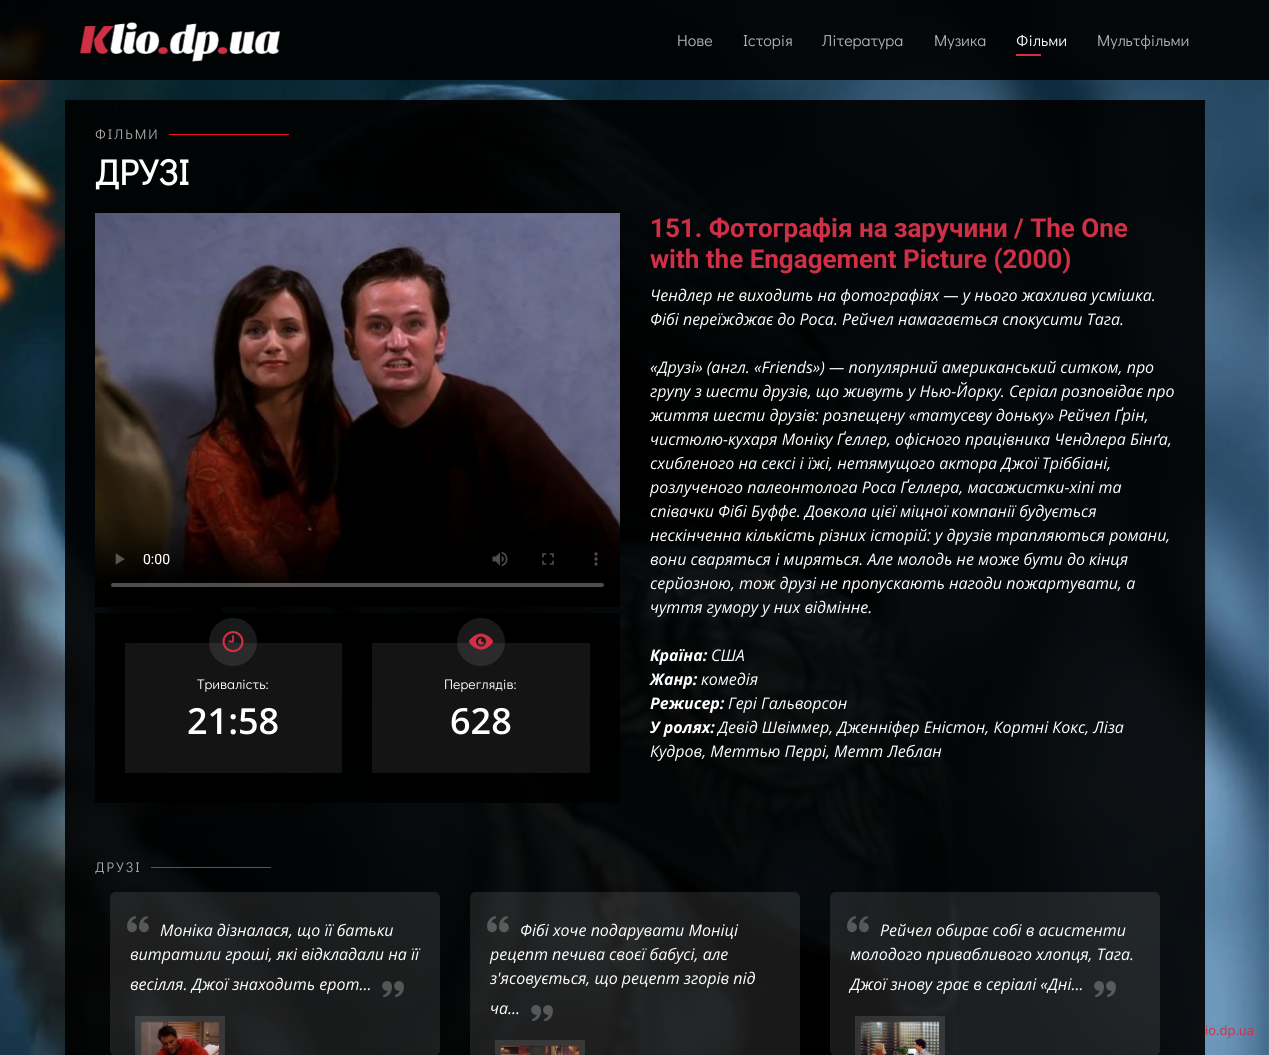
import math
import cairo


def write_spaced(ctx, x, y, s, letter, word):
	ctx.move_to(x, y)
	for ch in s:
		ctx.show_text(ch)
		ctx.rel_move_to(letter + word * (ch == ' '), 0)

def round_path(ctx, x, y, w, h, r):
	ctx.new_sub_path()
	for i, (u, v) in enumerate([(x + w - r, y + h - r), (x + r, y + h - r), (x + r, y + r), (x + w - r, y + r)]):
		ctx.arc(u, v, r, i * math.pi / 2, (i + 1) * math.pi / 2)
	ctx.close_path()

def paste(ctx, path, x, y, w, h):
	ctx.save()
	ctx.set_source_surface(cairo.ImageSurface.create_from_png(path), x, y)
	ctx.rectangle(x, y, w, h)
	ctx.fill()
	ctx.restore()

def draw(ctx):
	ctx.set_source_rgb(1, 1, 1)
	ctx.paint()
	paste(ctx, 'media/1.png', 0, 0, 1269, 1055)
	ctx.set_source_rgba(0, 0, 0, 0.9)
	ctx.rectangle(0, 0, 1269, 80)
	ctx.fill()
	paste(ctx, 'media/2.png', 79, 22, 201, 40)
	ctx.select_font_face('Didact Gothic')
	ctx.set_font_size(16)
	ctx.set_source_rgb(0.702, 0.706, 0.71)
	for x, y, s in [
		(677, 46, 'Нове'),
		(743, 46, 'Історія'),
		(822, 46, 'Література'),
		(934, 46, 'Музика'),
	]:
		ctx.move_to(x, y)
		ctx.show_text(s)
	ctx.set_source_rgb(1, 1, 1)
	ctx.move_to(1016, 46)
	ctx.show_text('Фільми')
	ctx.set_source_rgb(0.812, 0.188, 0.275)
	ctx.rectangle(1016, 54, 25, 2)
	ctx.fill()
	ctx.set_source_rgb(0.702, 0.706, 0.71)
	ctx.move_to(1097, 46)
	ctx.show_text('Мультфільми')
	ctx.set_source_rgba(0, 0, 0, 0.9)
	ctx.rectangle(65, 100, 1140, 733)
	ctx.fill()
	ctx.set_font_size(14)
	ctx.set_source_rgb(0.667, 0.667, 0.667)
	write_spaced(ctx, 95, 139, 'ФІЛЬМИ', 2, 0)
	ctx.set_source_rgb(0.945, 0.059, 0.173)
	ctx.rectangle(169, 134, 120, 1)
	ctx.fill()
	ctx.select_font_face('Didact Gothic', cairo.FONT_SLANT_NORMAL, cairo.FONT_WEIGHT_BOLD)
	ctx.set_font_size(36)
	ctx.set_source_rgb(1, 1, 1)
	ctx.move_to(95, 185)
	ctx.show_text('ДРУЗІ')
	paste(ctx, 'media/3.png', 95, 213, 525, 394)
	ctx.set_source_rgba(0, 0, 0, 0.9)
	ctx.rectangle(95, 613, 525, 190)
	ctx.fill()
	ctx.set_source_rgb(0.082, 0.082, 0.082)
	ctx.rectangle(125, 643, 217, 130)
	ctx.fill()
	ctx.set_source_rgba(1, 1, 1, 0.1)
	ctx.arc(233, 642, 24, 0, 2 * math.pi)
	ctx.fill()
	paste(ctx, 'media/4.png', 222, 631, 22, 22)
	ctx.select_font_face('Didact Gothic')
	ctx.set_font_size(14)
	ctx.set_source_rgb(1, 1, 1)
	ctx.move_to(197, 689)
	ctx.show_text('Тривалість:')
	ctx.select_font_face('Open Sans SemiBold')
	ctx.set_font_size(36)
	ctx.move_to(187, 734)
	ctx.show_text('21:58')
	ctx.set_source_rgb(0.082, 0.082, 0.082)
	ctx.rectangle(372, 643, 218, 130)
	ctx.fill()
	ctx.set_source_rgba(1, 1, 1, 0.1)
	ctx.arc(481, 642, 24, 0, 2 * math.pi)
	ctx.fill()
	paste(ctx, 'media/5.png', 469, 633, 24, 17)
	ctx.select_font_face('Didact Gothic')
	ctx.set_font_size(14)
	ctx.set_source_rgb(1, 1, 1)
	ctx.move_to(444, 689)
	ctx.show_text('Переглядів:')
	ctx.select_font_face('Open Sans SemiBold')
	ctx.set_font_size(36)
	ctx.move_to(450, 734)
	ctx.show_text('628')
	ctx.select_font_face('Roboto', cairo.FONT_SLANT_NORMAL, cairo.FONT_WEIGHT_BOLD)
	ctx.set_font_size(26)
	ctx.set_source_rgb(0.812, 0.188, 0.275)
	ctx.move_to(650, 237)
	ctx.show_text('151. Фотографія на заручини / The One')
	ctx.move_to(650, 268)
	ctx.show_text('with the Engagement Picture (2000)')
	ctx.select_font_face('Open Sans', cairo.FONT_SLANT_ITALIC)
	ctx.set_font_size(16)
	ctx.set_source_rgb(1, 1, 1)
	for x, y, s in [
		(650, 301, 'Чендлер не виходить на фотографіях — у нього жахлива усмішка.'),
		(650, 325, 'Фібі переїжджає до Роса. Рейчел намагається спокусити Тага.'),
		(650, 373, '«Друзі» (англ. «Friends») — популярний американський ситком, про'),
		(650, 397, 'групу з шести друзів, що живуть у Нью-Йорку. Серіал розповідає про'),
		(650, 421, 'життя шести друзів: розпещену «татусеву доньку» Рейчел Ґрін,'),
		(650, 445, 'чистюлю-кухаря Моніку Ґеллер, офісного працівника Чендлера Бінґа,'),
		(650, 469, 'схибленого на сексі і їжі, нетямущого актора Джої Тріббіані,'),
		(650, 493, 'розлученого палеонтолога Роса Ґеллера, масажистки-хіпі та'),
		(650, 517, 'співачки Фібі Буффе. Довкола цієї міцної компанії будується'),
		(650, 541, 'нескінченна кількість різних історій: у друзів трапляються романи,'),
		(650, 565, 'вони сваряться і миряться. Але молодь не може бути до кінця'),
		(650, 589, 'серйозною, тож друзі не пропускають нагоди пожартувати, а'),
		(650, 613, 'чуття гумору у них відмінне.'),
	]:
		ctx.move_to(x, y)
		ctx.show_text(s)
	ctx.select_font_face('Open Sans', cairo.FONT_SLANT_ITALIC, cairo.FONT_WEIGHT_BOLD)
	ctx.move_to(650, 661)
	ctx.show_text('Країна:')
	ctx.select_font_face('Open Sans', cairo.FONT_SLANT_ITALIC)
	ctx.move_to(711, 661)
	ctx.show_text('США')
	ctx.select_font_face('Open Sans', cairo.FONT_SLANT_ITALIC, cairo.FONT_WEIGHT_BOLD)
	ctx.move_to(650, 685)
	ctx.show_text('Жанр:')
	ctx.select_font_face('Open Sans', cairo.FONT_SLANT_ITALIC)
	ctx.move_to(701, 685)
	ctx.show_text('комедія')
	ctx.select_font_face('Open Sans', cairo.FONT_SLANT_ITALIC, cairo.FONT_WEIGHT_BOLD)
	ctx.move_to(650, 709)
	ctx.show_text('Режисер:')
	ctx.select_font_face('Open Sans', cairo.FONT_SLANT_ITALIC)
	ctx.move_to(728, 709)
	ctx.show_text('Гері Гальворсон')
	ctx.select_font_face('Open Sans', cairo.FONT_SLANT_ITALIC, cairo.FONT_WEIGHT_BOLD)
	ctx.move_to(650, 733)
	ctx.show_text('У ролях:')
	ctx.select_font_face('Open Sans', cairo.FONT_SLANT_ITALIC)
	ctx.move_to(718, 733)
	ctx.show_text('Девід Швіммер, Дженніфер Еністон, Кортні Кокс, Ліза')
	ctx.move_to(650, 757)
	ctx.show_text('Кудров, Меттью Перрі, Метт Леблан')
	ctx.set_source_rgba(0, 0, 0, 0.9)
	ctx.rectangle(65, 833, 1140, 222)
	ctx.fill()
	ctx.select_font_face('Didact Gothic')
	ctx.set_font_size(14)
	ctx.set_source_rgb(0.667, 0.667, 0.667)
	write_spaced(ctx, 95, 872, 'ДРУЗІ', 2, 0)
	ctx.set_source_rgb(0.945, 0.059, 0.173)
	ctx.rectangle(151, 867, 120, 1)
	ctx.fill()
	ctx.set_source_rgba(1, 1, 1, 0.1)
	round_path(ctx, 110, 892, 330, 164, 6)
	ctx.fill()
	paste(ctx, 'media/6.png', 127, 916, 22, 17)
	ctx.select_font_face('Open Sans', cairo.FONT_SLANT_ITALIC)
	ctx.set_font_size(16)
	ctx.set_source_rgb(1, 1, 1)
	for x, y, s in [
		(160, 936, 'Моніка дізналася, що її батьки'),
		(130, 960, 'витратили гроші, які відкладали на її'),
		(130, 990, 'весілля. Джої знаходить ерот...'),
	]:
		ctx.move_to(x, y)
		ctx.show_text(s)
	paste(ctx, 'media/7.png', 382, 981, 22, 17)
	ctx.rectangle(138, 1019, 84, 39)
	ctx.set_source_rgba(1, 1, 1, 0.12)
	ctx.set_line_width(6)
	ctx.stroke()
	paste(ctx, 'media/8.png', 140, 1021, 80, 34)
	ctx.set_source_rgba(1, 1, 1, 0.1)
	round_path(ctx, 470, 892, 330, 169, 6)
	ctx.fill()
	paste(ctx, 'media/9.png', 487, 916, 22, 17)
	ctx.set_source_rgb(1, 1, 1)
	for x, y, s in [
		(520, 936, 'Фібі хоче подарувати Моніці'),
		(490, 960, 'рецепт печива своєї бабусі, але'),
		(490, 984, 'з\'ясовується, що рецепт згорів під'),
		(490, 1014, 'ча...'),
	]:
		ctx.move_to(x, y)
		ctx.show_text(s)
	paste(ctx, 'media/10.png', 531, 1005, 22, 17)
	ctx.rectangle(498, 1043, 84, 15)
	ctx.set_source_rgba(1, 1, 1, 0.12)
	ctx.stroke()
	paste(ctx, 'media/11.png', 500, 1045, 80, 10)
	ctx.set_source_rgba(1, 1, 1, 0.1)
	round_path(ctx, 830, 892, 330, 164, 6)
	ctx.fill()
	paste(ctx, 'media/12.png', 847, 916, 22, 17)
	ctx.set_source_rgb(1, 1, 1)
	for x, y, s in [
		(880, 936, 'Рейчел обирає собі в асистенти'),
		(850, 960, 'молодого привабливого хлопця, Тага.'),
		(850, 990, 'Джої знову грає в серіалі «Дні...'),
	]:
		ctx.move_to(x, y)
		ctx.show_text(s)
	paste(ctx, 'media/13.png', 1094, 981, 22, 17)
	ctx.rectangle(858, 1019, 84, 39)
	ctx.set_source_rgba(1, 1, 1, 0.12)
	ctx.stroke()
	paste(ctx, 'media/14.png', 860, 1021, 80, 34)
	ctx.select_font_face('Open Sans')
	ctx.set_font_size(13)
	ctx.set_source_rgb(0.812, 0.188, 0.275)
	ctx.move_to(1205, 1035)
	ctx.show_text('io.dp.ua')


surface = cairo.ImageSurface(cairo.FORMAT_RGB24, 1269, 1055)
ctx = cairo.Context(surface)
options = cairo.FontOptions()
options.set_hint_metrics(cairo.HINT_METRICS_OFF)
options.set_hint_style(cairo.HINT_STYLE_NONE)
ctx.set_font_options(options)
ctx.set_miter_limit(4)
draw(ctx)
surface.write_to_png('image.png')
